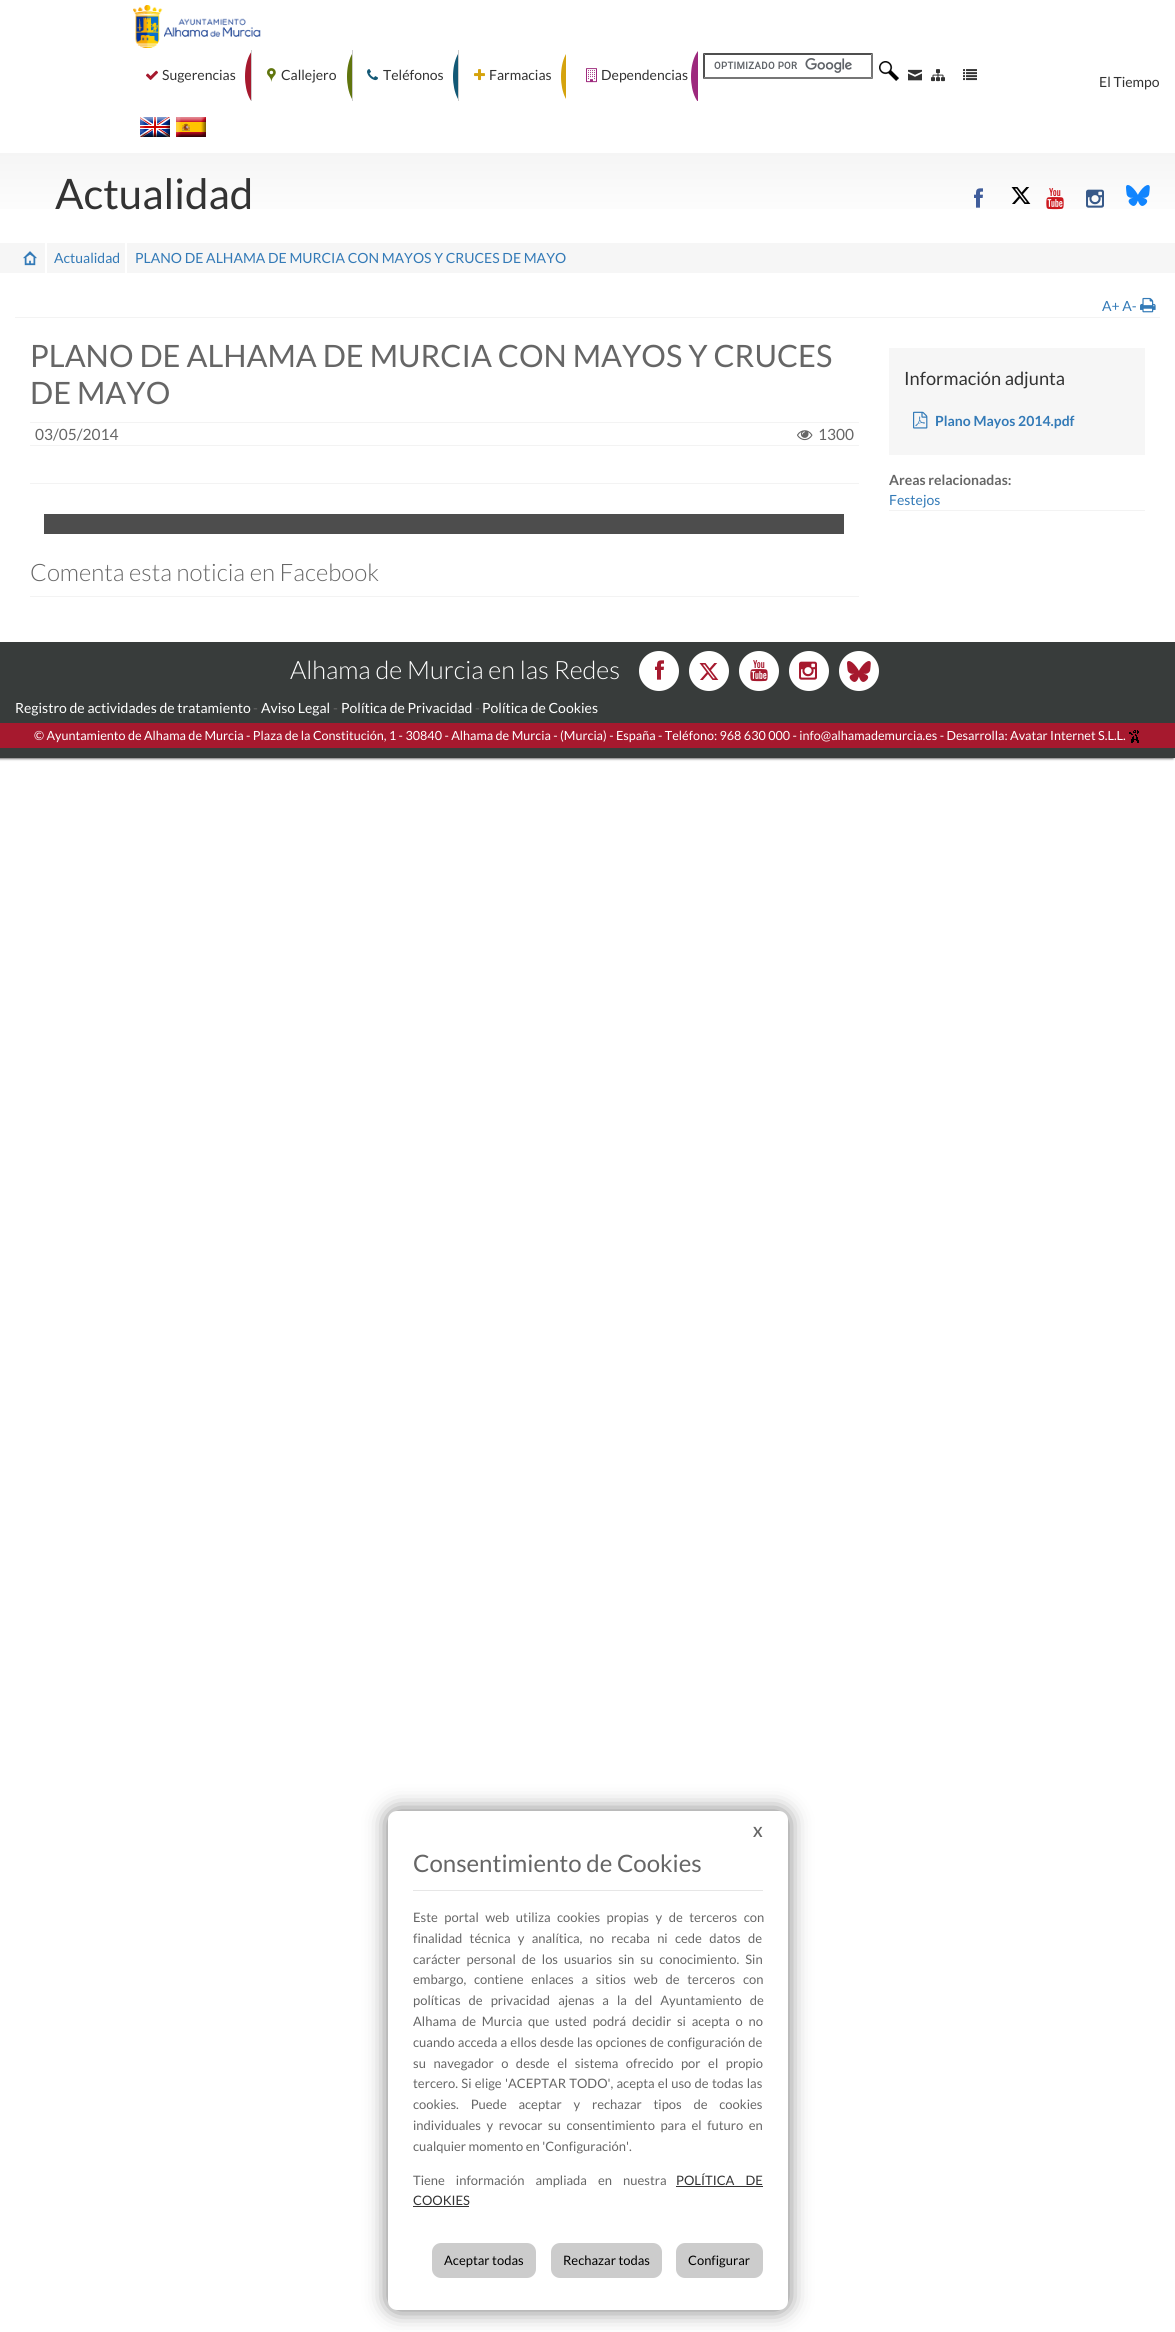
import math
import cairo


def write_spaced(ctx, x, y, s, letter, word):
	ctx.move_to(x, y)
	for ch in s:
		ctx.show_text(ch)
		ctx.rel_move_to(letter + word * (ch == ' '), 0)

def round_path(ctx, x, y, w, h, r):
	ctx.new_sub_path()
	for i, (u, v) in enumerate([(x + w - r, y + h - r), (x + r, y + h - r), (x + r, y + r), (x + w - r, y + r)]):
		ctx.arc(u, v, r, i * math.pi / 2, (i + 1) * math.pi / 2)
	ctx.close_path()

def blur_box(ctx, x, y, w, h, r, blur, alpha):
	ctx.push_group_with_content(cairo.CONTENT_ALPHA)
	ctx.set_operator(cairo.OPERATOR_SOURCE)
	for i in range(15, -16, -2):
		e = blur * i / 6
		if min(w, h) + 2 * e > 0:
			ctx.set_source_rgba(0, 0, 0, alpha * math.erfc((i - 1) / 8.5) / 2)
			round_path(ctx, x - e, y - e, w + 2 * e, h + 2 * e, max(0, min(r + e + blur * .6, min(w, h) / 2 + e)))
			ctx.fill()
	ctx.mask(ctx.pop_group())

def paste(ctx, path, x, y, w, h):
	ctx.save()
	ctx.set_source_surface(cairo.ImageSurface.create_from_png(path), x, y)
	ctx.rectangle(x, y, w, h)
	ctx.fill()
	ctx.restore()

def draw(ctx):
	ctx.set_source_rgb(1, 1, 1)
	ctx.paint()
	paste(ctx, 'media/1.png', 133, 5, 128, 43)
	paste(ctx, 'media/2.png', 146, 70, 12, 10)
	ctx.select_font_face('Lato')
	ctx.set_font_size(14)
	ctx.set_source_rgb(0.2, 0.2, 0.2)
	ctx.move_to(162, 80)
	ctx.show_text('Sugerencias')
	ctx.save()
	ctx.rectangle(133, 50, 118, 51)
	ctx.clip()
	ctx.set_source_rgb(0.651, 0.098, 0.18)
	ctx.new_path()
	ctx.move_to(260, 46.5)
	ctx.curve_to(268.5, 46.5, 275, 60, 275, 76.5)
	ctx.curve_to(275, 93, 268.5, 106.5, 260, 106.5)
	ctx.curve_to(251.5, 106.5, 245, 93, 245, 76.5)
	ctx.curve_to(245, 60, 251.5, 46.5, 260, 46.5)
	ctx.close_path()
	ctx.fill()
	ctx.restore()
	ctx.set_source_rgb(0.8, 0.8, 0.8)
	ctx.rectangle(251, 50, 1, 51)
	ctx.fill()
	paste(ctx, 'media/3.png', 267, 68, 9, 14)
	ctx.set_source_rgb(0.2, 0.2, 0.2)
	ctx.move_to(281, 80)
	ctx.show_text('Callejero')
	ctx.save()
	ctx.rectangle(252, 50, 100, 51)
	ctx.clip()
	ctx.set_source_rgb(0.376, 0.459, 0.051)
	ctx.new_path()
	ctx.move_to(362, 46.5)
	ctx.curve_to(370.5, 46.5, 377, 60, 377, 76.5)
	ctx.curve_to(377, 93, 370.5, 106.5, 362, 106.5)
	ctx.curve_to(353.5, 106.5, 347, 93, 347, 76.5)
	ctx.curve_to(347, 60, 353.5, 46.5, 362, 46.5)
	ctx.close_path()
	ctx.fill()
	ctx.restore()
	ctx.set_source_rgb(0.8, 0.8, 0.8)
	ctx.rectangle(352, 50, 1, 51)
	ctx.fill()
	paste(ctx, 'media/4.png', 367, 69, 11, 12)
	ctx.set_source_rgb(0.2, 0.2, 0.2)
	ctx.move_to(383, 80)
	ctx.show_text('Teléfonos')
	ctx.save()
	ctx.rectangle(353, 50, 105, 51)
	ctx.clip()
	ctx.set_source_rgb(0.078, 0.349, 0.463)
	ctx.new_path()
	ctx.move_to(468, 46.5)
	ctx.curve_to(476.5, 46.5, 483, 60, 483, 76.5)
	ctx.curve_to(483, 93, 476.5, 106.5, 468, 106.5)
	ctx.curve_to(459.5, 106.5, 453, 93, 453, 76.5)
	ctx.curve_to(453, 60, 459.5, 46.5, 468, 46.5)
	ctx.close_path()
	ctx.fill()
	ctx.restore()
	ctx.set_source_rgb(0.8, 0.8, 0.8)
	ctx.rectangle(458, 50, 1, 51)
	ctx.fill()
	paste(ctx, 'media/5.png', 474, 69, 11, 12)
	ctx.set_source_rgb(0.2, 0.2, 0.2)
	ctx.move_to(489, 80)
	ctx.show_text('Farmacias')
	ctx.save()
	ctx.rectangle(459, 50, 107, 51)
	ctx.clip()
	ctx.set_source_rgb(0.835, 0.639, 0.051)
	ctx.new_path()
	ctx.move_to(576, 46.5)
	ctx.curve_to(584.5, 46.5, 591, 60, 591, 76.5)
	ctx.curve_to(591, 93, 584.5, 106.5, 576, 106.5)
	ctx.curve_to(567.5, 106.5, 561, 93, 561, 76.5)
	ctx.curve_to(561, 60, 567.5, 46.5, 576, 46.5)
	ctx.close_path()
	ctx.fill()
	ctx.restore()
	paste(ctx, 'media/6.png', 586, 68, 11, 15)
	ctx.move_to(601, 80)
	ctx.show_text('Dependencias')
	ctx.save()
	ctx.rectangle(566, 50, 132, 51)
	ctx.clip()
	ctx.set_source_rgb(0.616, 0.161, 0.49)
	ctx.new_path()
	ctx.move_to(706, 46.5)
	ctx.curve_to(714.5, 46.5, 721, 60, 721, 76.5)
	ctx.curve_to(721, 93, 714.5, 106.5, 706, 106.5)
	ctx.curve_to(697.5, 106.5, 691, 93, 691, 76.5)
	ctx.curve_to(691, 60, 697.5, 46.5, 706, 46.5)
	ctx.close_path()
	ctx.fill()
	ctx.restore()
	paste(ctx, 'media/7.png', 714, 58, 138, 15)
	ctx.set_source_rgb(0.31, 0.31, 0.31)
	ctx.new_path()
	ctx.move_to(703, 53)
	ctx.line_to(873, 53)
	ctx.line_to(871, 55)
	ctx.line_to(705, 55)
	ctx.close_path()
	ctx.fill()
	ctx.set_source_rgb(0.463, 0.463, 0.463)
	ctx.new_path()
	ctx.move_to(873, 53)
	ctx.line_to(873, 79)
	ctx.line_to(871, 77)
	ctx.line_to(871, 55)
	ctx.close_path()
	ctx.fill()
	ctx.new_path()
	ctx.move_to(873, 79)
	ctx.line_to(703, 79)
	ctx.line_to(705, 77)
	ctx.line_to(871, 77)
	ctx.close_path()
	ctx.fill()
	ctx.set_source_rgb(0.31, 0.31, 0.31)
	ctx.new_path()
	ctx.move_to(703, 79)
	ctx.line_to(703, 53)
	ctx.line_to(705, 55)
	ctx.line_to(705, 77)
	ctx.close_path()
	ctx.fill()
	paste(ctx, 'media/8.png', 879, 61, 20, 20)
	paste(ctx, 'media/9.png', 908, 69, 14, 12)
	paste(ctx, 'media/10.png', 931, 69, 14, 13)
	paste(ctx, 'media/11.png', 963, 69, 14, 12)
	ctx.set_source_rgb(0.2, 0.2, 0.2)
	ctx.move_to(1099, 87)
	ctx.show_text('El Tiempo')
	paste(ctx, 'media/12.png', 140, 117, 30, 20)
	paste(ctx, 'media/13.png', 176, 117, 30, 20)
	gradient = cairo.LinearGradient(588, 153, 588, 228)
	gradient.add_color_stop_rgba(0, 0.961, 0.961, 0.961, 1)
	gradient.add_color_stop_rgba(1, 1, 1, 1, 1)
	ctx.set_source(gradient)
	ctx.rectangle(0, 153, 1175, 56)
	ctx.fill()
	ctx.set_font_size(42)
	ctx.set_source_rgb(0.2, 0.2, 0.2)
	ctx.move_to(55, 209)
	ctx.show_text('Actualidad')
	paste(ctx, 'media/14.png', 974, 188, 9, 20)
	paste(ctx, 'media/15.png', 1011, 187, 20, 17)
	paste(ctx, 'media/16.png', 1046, 188, 18, 22)
	paste(ctx, 'media/17.png', 1086, 189, 18, 19)
	paste(ctx, 'media/18.png', 1126, 185, 24, 21)
	ctx.set_source_rgb(0.961, 0.961, 0.961)
	ctx.rectangle(0, 243, 1175, 30)
	ctx.fill()
	ctx.set_source_rgb(1, 1, 1)
	ctx.rectangle(45, 243, 2, 30)
	ctx.fill()
	paste(ctx, 'media/19.png', 23, 251, 14, 15)
	ctx.rectangle(125, 243, 2, 30)
	ctx.fill()
	ctx.set_font_size(14)
	ctx.set_source_rgb(0.2, 0.478, 0.718)
	ctx.move_to(54, 263)
	ctx.show_text('Actualidad')
	ctx.move_to(135, 263)
	ctx.show_text('PLANO DE ALHAMA DE MURCIA CON MAYOS Y CRUCES DE MAYO')
	ctx.set_source_rgb(0.953, 0.953, 0.953)
	ctx.rectangle(15, 317, 1145, 1)
	ctx.fill()
	ctx.set_source_rgb(0.2, 0.478, 0.718)
	ctx.move_to(1102, 311)
	ctx.show_text('A+ A-')
	paste(ctx, 'media/20.png', 1140, 297, 16, 16)
	ctx.set_font_size(30.8)
	ctx.set_source_rgb(0.4, 0.4, 0.4)
	ctx.move_to(30, 367)
	ctx.show_text('PLANO DE ALHAMA DE MURCIA CON MAYOS Y CRUCES')
	ctx.move_to(30, 404)
	ctx.show_text('DE MAYO')
	ctx.set_source_rgb(0.953, 0.953, 0.953)
	ctx.rectangle(30, 422, 829, 1)
	ctx.fill()
	ctx.rectangle(30, 445, 829, 1)
	ctx.fill()
	ctx.set_font_size(15.5)
	ctx.set_source_rgb(0.4, 0.4, 0.4)
	ctx.move_to(35, 440)
	ctx.show_text('03/05/2014')
	paste(ctx, 'media/21.png', 797, 430, 16, 11)
	ctx.move_to(818, 440)
	ctx.show_text('1300')
	ctx.set_source_rgb(0.953, 0.953, 0.953)
	ctx.rectangle(30, 483, 829, 1)
	ctx.fill()
	ctx.set_source_rgb(0.302, 0.302, 0.302)
	ctx.rectangle(44, 514, 800, 20)
	ctx.fill()
	ctx.set_source_rgb(0.953, 0.953, 0.953)
	ctx.rectangle(30, 596, 829, 1)
	ctx.fill()
	ctx.select_font_face('Lato Light')
	ctx.set_font_size(24)
	ctx.set_source_rgb(0.4, 0.4, 0.4)
	ctx.move_to(30, 581)
	ctx.show_text('Comenta esta noticia en Facebook')
	ctx.set_source_rgb(0.961, 0.961, 0.961)
	ctx.rectangle(889, 348, 256, 107)
	ctx.fill()
	ctx.select_font_face('Lato')
	ctx.set_font_size(18.25)
	ctx.set_source_rgb(0.2, 0.2, 0.2)
	ctx.move_to(904, 385)
	ctx.show_text('Información adjunta')
	paste(ctx, 'media/22.png', 913, 411, 15, 18)
	ctx.select_font_face('Lato', cairo.FONT_SLANT_NORMAL, cairo.FONT_WEIGHT_BOLD)
	ctx.set_font_size(14)
	ctx.set_source_rgb(0.2, 0.478, 0.718)
	ctx.move_to(935, 426)
	ctx.show_text('Plano Mayos 2014.pdf')
	ctx.set_source_rgb(0.953, 0.953, 0.953)
	ctx.rectangle(889, 510, 256, 1)
	ctx.fill()
	ctx.set_source_rgb(0.4, 0.4, 0.4)
	ctx.move_to(889, 485)
	ctx.show_text('Areas relacionadas:')
	ctx.select_font_face('Lato')
	ctx.set_source_rgb(0.2, 0.478, 0.718)
	ctx.move_to(889, 505)
	ctx.show_text('Festejos')
	ctx.set_source_rgb(0, 0, 0)
	blur_box(ctx, -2, 723, 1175, 35, 0, 1.5, 1)
	ctx.set_source_rgb(0.22, 0.235, 0.231)
	ctx.rectangle(0, 642, 1175, 81)
	ctx.fill()
	ctx.select_font_face('Lato Light')
	ctx.set_font_size(25.25)
	ctx.set_source_rgb(1, 1, 1)
	ctx.move_to(290, 679)
	ctx.show_text('Alhama de Murcia en las Redes')
	ctx.new_path()
	ctx.arc(659, 671, 18.5, 0, 2 * math.pi)
	ctx.fill_preserve()
	ctx.set_line_width(3)
	ctx.stroke()
	paste(ctx, 'media/23.png', 655, 660, 9, 20)
	ctx.arc(709, 671, 18.5, 0, 2 * math.pi)
	ctx.fill_preserve()
	ctx.stroke()
	paste(ctx, 'media/24.png', 699, 663, 20, 17)
	ctx.arc(759, 671, 18.5, 0, 2 * math.pi)
	ctx.fill_preserve()
	ctx.stroke()
	paste(ctx, 'media/25.png', 750, 660, 18, 22)
	ctx.arc(809, 671, 18.5, 0, 2 * math.pi)
	ctx.fill_preserve()
	ctx.stroke()
	paste(ctx, 'media/26.png', 799, 661, 18, 19)
	ctx.arc(859, 671, 18.5, 0, 2 * math.pi)
	ctx.fill_preserve()
	ctx.stroke()
	paste(ctx, 'media/27.png', 847, 661, 24, 21)
	ctx.select_font_face('Lato')
	ctx.set_font_size(14)
	ctx.move_to(15, 713)
	ctx.show_text('Registro de actividades de tratamiento')
	ctx.set_source_rgb(0.4, 0.4, 0.4)
	ctx.move_to(253, 713)
	ctx.show_text('-')
	ctx.set_source_rgb(1, 1, 1)
	ctx.move_to(261, 713)
	ctx.show_text('Aviso Legal')
	ctx.set_source_rgb(0.4, 0.4, 0.4)
	ctx.move_to(333, 713)
	ctx.show_text('-')
	ctx.set_source_rgb(1, 1, 1)
	ctx.move_to(341, 713)
	ctx.show_text('Política de Privacidad')
	ctx.set_source_rgb(0.4, 0.4, 0.4)
	ctx.move_to(475, 713)
	ctx.show_text('-')
	ctx.set_source_rgb(1, 1, 1)
	ctx.move_to(482, 713)
	ctx.show_text('Política de Cookies')
	ctx.set_source_rgb(0.22, 0.235, 0.231)
	ctx.rectangle(0, 748, 1175, 10)
	ctx.fill()
	ctx.set_source_rgb(0.651, 0.098, 0.18)
	ctx.rectangle(0, 723, 1175, 25)
	ctx.fill()
	ctx.set_font_size(12.6)
	ctx.set_source_rgb(1, 1, 1)
	ctx.move_to(34, 740)
	ctx.show_text('© Ayuntamiento de Alhama de Murcia - Plaza de la Constitución, 1 - 30840 - Alhama de Murcia - (Murcia) - España - Teléfono: 968 630 000 - info@alhamademurcia.es - Desarrolla: Avatar Internet S.L.L.')
	paste(ctx, 'media/28.png', 1129, 730, 10, 13)
	ctx.set_source_rgb(0, 0, 0)
	blur_box(ctx, 388, 1811, 400, 499, 9, 11, 0.54)
	ctx.set_source_rgb(1, 1, 1)
	round_path(ctx, 388, 1811, 400, 499, 9)
	ctx.fill()
	ctx.select_font_face('Lato', cairo.FONT_SLANT_NORMAL, cairo.FONT_WEIGHT_BOLD)
	ctx.set_font_size(14)
	ctx.set_source_rgb(0.4, 0.4, 0.4)
	ctx.move_to(753, 1837)
	ctx.show_text('X')
	ctx.set_source_rgb(0.902, 0.902, 0.902)
	ctx.rectangle(413, 1890, 350, 1)
	ctx.fill()
	ctx.select_font_face('Lato')
	ctx.set_font_size(24)
	ctx.set_source_rgb(0.4, 0.4, 0.4)
	ctx.move_to(413, 1872)
	ctx.show_text('Consentimiento de Cookies')
	ctx.set_font_size(13)
	write_spaced(ctx, 413, 1922, 'Este portal web utiliza cookies propias y de terceros con', 0, 4)
	write_spaced(ctx, 413, 1943, 'finalidad técnica y analítica, no recaba ni cede datos de', 0, 4.75)
	write_spaced(ctx, 413, 1964, 'carácter personal de los usuarios sin su conocimiento. Sin', 0, 3.5)
	write_spaced(ctx, 413, 1984, 'embargo, contiene enlaces a sitios web de terceros con', 0, 5.25)
	write_spaced(ctx, 413, 2005, 'políticas de privacidad ajenas a la del Ayuntamiento de', 0, 5.5)
	write_spaced(ctx, 413, 2026, 'Alhama de Murcia que usted podrá decidir si acepta o no', 0, 3.25)
	write_spaced(ctx, 413, 2047, 'cuando acceda a ellos desde las opciones de configuración de', 0, 0.75)
	write_spaced(ctx, 413, 2068, 'su navegador o desde el sistema ofrecido por el propio', 0, 5)
	write_spaced(ctx, 413, 2088, 'tercero. Si elige \'ACEPTAR TODO\', acepta el uso de todas las', 0, 0.75)
	write_spaced(ctx, 413, 2109, 'cookies. Puede aceptar y rechazar tipos de cookies', 0, 9.25)
	write_spaced(ctx, 413, 2130, 'individuales y revocar su consentimiento para el futuro en', 0, 3)
	ctx.move_to(413, 2151)
	ctx.show_text('cualquier momento en \'Configuración\'.')
	write_spaced(ctx, 413, 2185, 'Tiene información ampliada en nuestra', 0, 8.5)
	ctx.set_source_rgb(0.2, 0.2, 0.2)
	write_spaced(ctx, 676, 2185, 'POLÍTICA DE', 0, 8.5)
	ctx.rectangle(676, 2186, 87, 1)
	ctx.fill()
	ctx.move_to(413, 2205)
	ctx.show_text('COOKIES')
	ctx.rectangle(413, 2206, 56, 1)
	ctx.fill()
	ctx.set_source_rgb(0.8, 0.8, 0.8)
	round_path(ctx, 432, 2243, 104, 35, 9)
	ctx.fill()
	ctx.set_source_rgb(0, 0, 0)
	ctx.move_to(444, 2265)
	ctx.show_text('Aceptar todas')
	ctx.set_source_rgb(0.8, 0.8, 0.8)
	round_path(ctx, 551, 2243, 111, 35, 9)
	ctx.fill()
	ctx.set_source_rgb(0, 0, 0)
	ctx.move_to(563, 2265)
	ctx.show_text('Rechazar todas')
	ctx.set_source_rgb(0.8, 0.8, 0.8)
	round_path(ctx, 676, 2243, 87, 35, 9)
	ctx.fill()
	ctx.set_source_rgb(0, 0, 0)
	ctx.move_to(688, 2265)
	ctx.show_text('Configurar')


surface = cairo.ImageSurface(cairo.FORMAT_RGB24, 1175, 2332)
ctx = cairo.Context(surface)
options = cairo.FontOptions()
options.set_hint_metrics(cairo.HINT_METRICS_OFF)
options.set_hint_style(cairo.HINT_STYLE_NONE)
ctx.set_font_options(options)
ctx.set_miter_limit(4)
draw(ctx)
surface.write_to_png('image.png')
